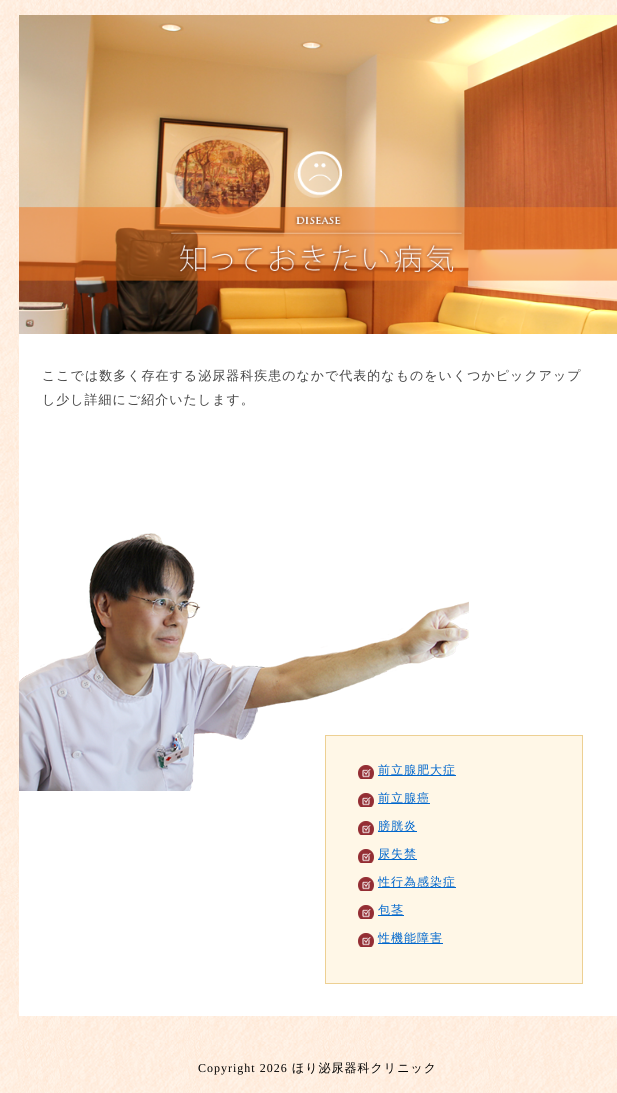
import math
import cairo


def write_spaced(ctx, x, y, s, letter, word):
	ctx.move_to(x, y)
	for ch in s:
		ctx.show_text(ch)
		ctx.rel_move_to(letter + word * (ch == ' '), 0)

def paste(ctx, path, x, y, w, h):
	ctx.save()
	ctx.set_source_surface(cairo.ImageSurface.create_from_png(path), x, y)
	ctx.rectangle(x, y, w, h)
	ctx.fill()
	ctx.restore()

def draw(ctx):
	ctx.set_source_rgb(1, 1, 1)
	ctx.paint()
	paste(ctx, 'media/1.png', 0, 0, 617, 1093)
	ctx.set_source_rgb(1, 1, 1)
	ctx.rectangle(19, 334, 598, 682)
	ctx.fill()
	paste(ctx, 'media/2.png', 19, 15, 598, 319)
	ctx.select_font_face('WenQuanYi Zen Hei Medium')
	ctx.set_font_size(13)
	ctx.set_source_rgb(0.271, 0.271, 0.271)
	write_spaced(ctx, 42, 380, 'ここでは数多く存在する泌尿器科疾患のなかで代表的なものをいくつかピックアップ', 1, 0)
	write_spaced(ctx, 42, 404, 'し少し詳細にご紹介いたします。', 1, 0)
	paste(ctx, 'media/3.png', 19, 533, 450, 258)
	ctx.set_source_rgb(1, 0.965, 0.906)
	ctx.rectangle(325.5, 735.5, 257, 248)
	ctx.fill_preserve()
	ctx.set_source_rgb(0.929, 0.816, 0.576)
	ctx.set_line_width(1)
	ctx.stroke()
	paste(ctx, 'media/4.png', 358, 765, 16, 14)
	ctx.set_source_rgb(0, 0.4, 0.8)
	ctx.rectangle(378, 775, 78, 1)
	ctx.fill()
	ctx.set_font_size(12)
	write_spaced(ctx, 378, 774, '前立腺肥大症', 1, 0)
	paste(ctx, 'media/4.png', 358, 793, 16, 14)
	ctx.rectangle(378, 803, 52, 1)
	ctx.fill()
	write_spaced(ctx, 378, 802, '前立腺癌', 1, 0)
	paste(ctx, 'media/4.png', 358, 821, 16, 14)
	ctx.rectangle(378, 831, 39, 1)
	ctx.fill()
	write_spaced(ctx, 378, 830, '膀胱炎', 1, 0)
	paste(ctx, 'media/4.png', 358, 849, 16, 14)
	ctx.rectangle(378, 859, 39, 1)
	ctx.fill()
	write_spaced(ctx, 378, 858, '尿失禁', 1, 0)
	paste(ctx, 'media/4.png', 358, 877, 16, 14)
	ctx.rectangle(378, 887, 78, 1)
	ctx.fill()
	write_spaced(ctx, 378, 886, '性行為感染症', 1, 0)
	paste(ctx, 'media/4.png', 358, 905, 16, 14)
	ctx.rectangle(378, 915, 26, 1)
	ctx.fill()
	write_spaced(ctx, 378, 914, '包茎', 1, 0)
	paste(ctx, 'media/4.png', 358, 933, 16, 14)
	ctx.rectangle(378, 943, 65, 1)
	ctx.fill()
	write_spaced(ctx, 378, 942, '性機能障害', 1, 0)
	ctx.select_font_face('Liberation Serif')
	ctx.set_source_rgb(0, 0, 0)
	write_spaced(ctx, 198, 1072, 'Copyright 2026', 1, 0)
	ctx.select_font_face('WenQuanYi Zen Hei Medium')
	write_spaced(ctx, 292, 1072, 'ほり泌尿器科クリニック', 1, 0)


surface = cairo.ImageSurface(cairo.FORMAT_RGB24, 617, 1093)
ctx = cairo.Context(surface)
options = cairo.FontOptions()
options.set_hint_metrics(cairo.HINT_METRICS_OFF)
options.set_hint_style(cairo.HINT_STYLE_NONE)
ctx.set_font_options(options)
ctx.set_miter_limit(4)
draw(ctx)
surface.write_to_png('image.png')
